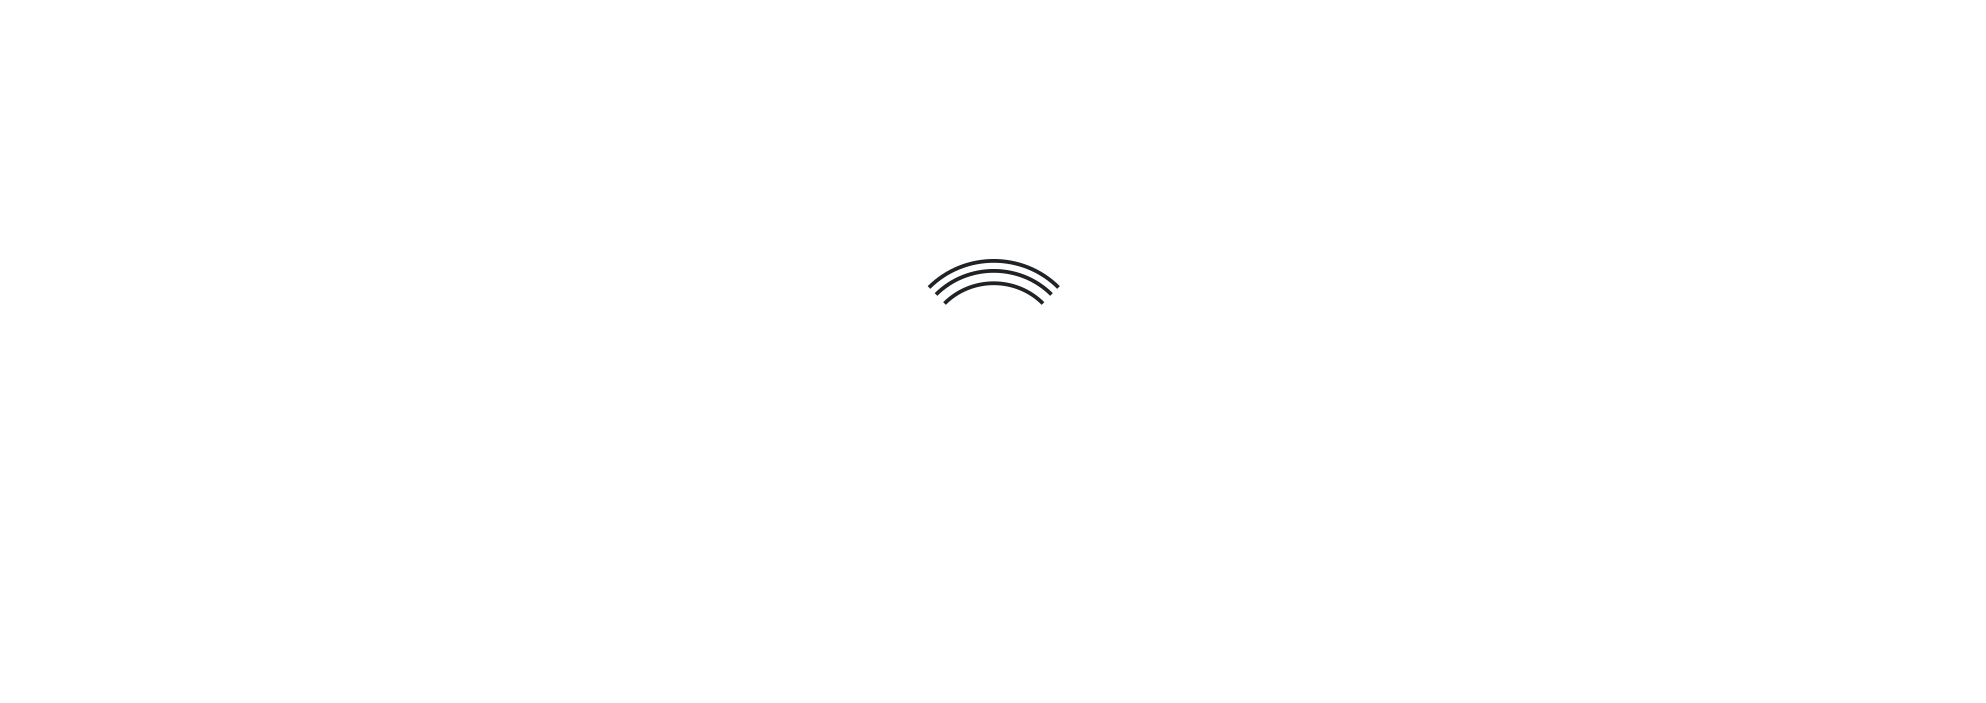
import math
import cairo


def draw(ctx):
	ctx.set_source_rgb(1, 1, 1)
	ctx.paint()
	ctx.new_path()
	ctx.move_to(929, 287.5)
	ctx.curve_to(964.5, 252, 1023, 252, 1058.5, 287.5)
	ctx.set_source_rgb(0.125, 0.137, 0.149)
	ctx.set_line_width(3.8)
	ctx.stroke()
	ctx.new_path()
	ctx.move_to(936, 294.5)
	ctx.curve_to(967.5, 263, 1020, 263, 1051.5, 294.5)
	ctx.stroke()
	ctx.new_path()
	ctx.move_to(944.5, 303.5)
	ctx.curve_to(971.5, 276.5, 1016, 276.5, 1043, 303.5)
	ctx.stroke()


surface = cairo.ImageSurface(cairo.FORMAT_RGB24, 1986, 703)
ctx = cairo.Context(surface)
options = cairo.FontOptions()
options.set_hint_metrics(cairo.HINT_METRICS_OFF)
options.set_hint_style(cairo.HINT_STYLE_NONE)
ctx.set_font_options(options)
ctx.set_miter_limit(4)
draw(ctx)
surface.write_to_png('image.png')
